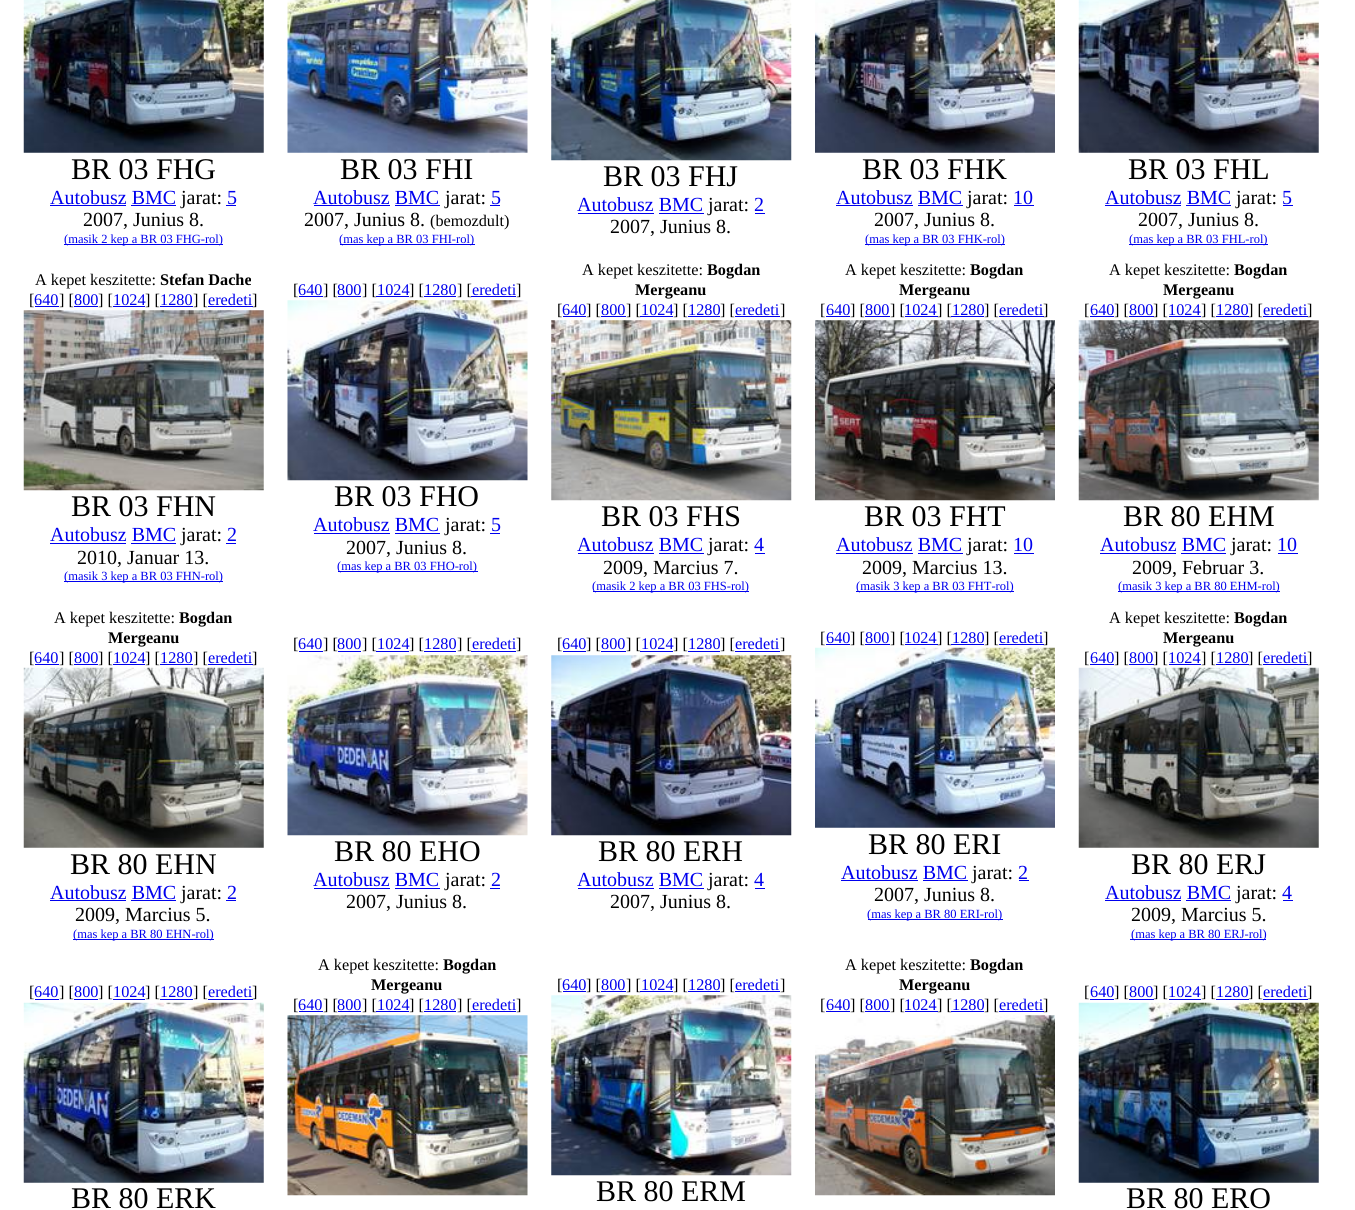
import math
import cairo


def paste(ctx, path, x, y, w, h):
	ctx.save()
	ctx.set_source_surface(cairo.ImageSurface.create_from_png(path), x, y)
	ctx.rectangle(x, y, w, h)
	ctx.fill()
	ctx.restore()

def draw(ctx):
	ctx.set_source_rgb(1, 1, 1)
	ctx.paint()
	paste(ctx, 'media/1.png', 23, 0, 241, 153)
	ctx.select_font_face('Liberation Serif')
	ctx.set_font_size(30)
	ctx.set_source_rgb(0, 0, 0)
	ctx.move_to(71, 179)
	ctx.show_text('BR 03 FHG')
	ctx.set_font_size(20)
	ctx.set_source_rgb(0, 0, 0.933)
	ctx.move_to(50, 204)
	ctx.show_text('Autobusz BMC')
	ctx.rectangle(50, 205, 76, 1)
	ctx.fill()
	ctx.set_source_rgb(0, 0, 0)
	ctx.move_to(181, 204)
	ctx.show_text('jarat:')
	ctx.set_source_rgb(0, 0, 0.933)
	ctx.move_to(227, 204)
	ctx.show_text('5')
	ctx.rectangle(226, 205, 10, 1)
	ctx.fill()
	ctx.rectangle(131, 205, 45, 1)
	ctx.fill()
	ctx.set_source_rgb(0, 0, 0)
	ctx.move_to(83, 226)
	ctx.show_text('2007, Junius 8.')
	ctx.set_source_rgb(0, 0, 0.933)
	ctx.rectangle(64, 244, 159, 1)
	ctx.fill()
	ctx.set_font_size(12.5)
	ctx.move_to(64, 243)
	ctx.show_text('(masik 2 kep a BR 03 FHG-rol)')
	paste(ctx, 'media/2.png', 287, 0, 241, 153)
	ctx.set_font_size(30)
	ctx.set_source_rgb(0, 0, 0)
	ctx.move_to(340, 179)
	ctx.show_text('BR 03 FHI')
	ctx.set_font_size(20)
	ctx.set_source_rgb(0, 0, 0.933)
	ctx.move_to(313, 204)
	ctx.show_text('Autobusz BMC')
	ctx.rectangle(314, 205, 76, 1)
	ctx.fill()
	ctx.set_source_rgb(0, 0, 0)
	ctx.move_to(445, 204)
	ctx.show_text('jarat:')
	ctx.set_source_rgb(0, 0, 0.933)
	ctx.move_to(491, 204)
	ctx.show_text('5')
	ctx.rectangle(490, 205, 10, 1)
	ctx.fill()
	ctx.rectangle(395, 205, 45, 1)
	ctx.fill()
	ctx.set_source_rgb(0, 0, 0)
	ctx.move_to(304, 226)
	ctx.show_text('2007, Junius 8.')
	ctx.set_font_size(16.25)
	ctx.move_to(430, 226)
	ctx.show_text('(bemozdult)')
	ctx.set_source_rgb(0, 0, 0.933)
	ctx.rectangle(340, 244, 135, 1)
	ctx.fill()
	ctx.set_font_size(12.5)
	ctx.move_to(339, 243)
	ctx.show_text('(mas kep a BR 03 FHI-rol)')
	paste(ctx, 'media/3.png', 551, 0, 241, 161)
	ctx.set_font_size(30)
	ctx.set_source_rgb(0, 0, 0)
	ctx.move_to(603, 186)
	ctx.show_text('BR 03 FHJ')
	ctx.set_font_size(20)
	ctx.set_source_rgb(0, 0, 0.933)
	ctx.move_to(577, 211)
	ctx.show_text('Autobusz BMC')
	ctx.rectangle(578, 213, 76, 1)
	ctx.fill()
	ctx.set_source_rgb(0, 0, 0)
	ctx.move_to(708, 211)
	ctx.show_text('jarat:')
	ctx.set_source_rgb(0, 0, 0.933)
	ctx.move_to(754, 211)
	ctx.show_text('2')
	ctx.rectangle(755, 213, 10, 1)
	ctx.fill()
	ctx.rectangle(659, 213, 45, 1)
	ctx.fill()
	ctx.set_source_rgb(0, 0, 0)
	ctx.move_to(610, 233)
	ctx.show_text('2007, Junius 8.')
	paste(ctx, 'media/4.png', 815, 0, 240, 153)
	ctx.set_font_size(30)
	ctx.move_to(862, 179)
	ctx.show_text('BR 03 FHK')
	ctx.set_font_size(20)
	ctx.set_source_rgb(0, 0, 0.933)
	ctx.move_to(836, 204)
	ctx.show_text('Autobusz BMC')
	ctx.rectangle(836, 205, 77, 1)
	ctx.fill()
	ctx.set_source_rgb(0, 0, 0)
	ctx.move_to(967, 204)
	ctx.show_text('jarat:')
	ctx.set_source_rgb(0, 0, 0.933)
	ctx.move_to(1013, 204)
	ctx.show_text('10')
	ctx.rectangle(1014, 205, 20, 1)
	ctx.fill()
	ctx.rectangle(918, 205, 45, 1)
	ctx.fill()
	ctx.set_source_rgb(0, 0, 0)
	ctx.move_to(874, 226)
	ctx.show_text('2007, Junius 8.')
	ctx.set_source_rgb(0, 0, 0.933)
	ctx.rectangle(865, 244, 140, 1)
	ctx.fill()
	ctx.set_font_size(12.5)
	ctx.move_to(865, 243)
	ctx.show_text('(mas kep a BR 03 FHK-rol)')
	paste(ctx, 'media/5.png', 1078, 0, 241, 153)
	ctx.set_font_size(30)
	ctx.set_source_rgb(0, 0, 0)
	ctx.move_to(1128, 179)
	ctx.show_text('BR 03 FHL')
	ctx.set_font_size(20)
	ctx.set_source_rgb(0, 0, 0.933)
	ctx.move_to(1105, 204)
	ctx.show_text('Autobusz BMC')
	ctx.rectangle(1105, 205, 76, 1)
	ctx.fill()
	ctx.set_source_rgb(0, 0, 0)
	ctx.move_to(1236, 204)
	ctx.show_text('jarat:')
	ctx.set_source_rgb(0, 0, 0.933)
	ctx.move_to(1282, 204)
	ctx.show_text('5')
	ctx.rectangle(1283, 205, 10, 1)
	ctx.fill()
	ctx.rectangle(1186, 205, 45, 1)
	ctx.fill()
	ctx.set_source_rgb(0, 0, 0)
	ctx.move_to(1138, 226)
	ctx.show_text('2007, Junius 8.')
	ctx.set_source_rgb(0, 0, 0.933)
	ctx.rectangle(1129, 244, 139, 1)
	ctx.fill()
	ctx.set_font_size(12.5)
	ctx.move_to(1129, 243)
	ctx.show_text('(mas kep a BR 03 FHL-rol)')
	ctx.set_font_size(16.25)
	ctx.set_source_rgb(0, 0, 0)
	ctx.move_to(35, 285)
	ctx.show_text('A kepet keszitette:')
	ctx.select_font_face('Liberation Serif', cairo.FONT_SLANT_NORMAL, cairo.FONT_WEIGHT_BOLD)
	ctx.move_to(160, 285)
	ctx.show_text('Stefan Dache')
	ctx.select_font_face('Liberation Serif')
	ctx.move_to(29, 305)
	ctx.show_text('[')
	ctx.set_source_rgb(0, 0, 0.933)
	ctx.move_to(34, 305)
	ctx.show_text('640')
	ctx.set_source_rgb(0, 0, 0)
	ctx.move_to(59, 305)
	ctx.show_text('] [')
	ctx.set_source_rgb(0, 0, 0.933)
	ctx.rectangle(35, 306, 24, 1)
	ctx.fill()
	ctx.rectangle(74, 306, 24, 1)
	ctx.fill()
	ctx.move_to(74, 305)
	ctx.show_text('800')
	ctx.set_source_rgb(0, 0, 0)
	ctx.move_to(98, 305)
	ctx.show_text('] [')
	ctx.set_source_rgb(0, 0, 0.933)
	ctx.rectangle(113, 306, 32, 1)
	ctx.fill()
	ctx.move_to(113, 305)
	ctx.show_text('1024')
	ctx.set_source_rgb(0, 0, 0)
	ctx.move_to(145, 305)
	ctx.show_text('] [')
	ctx.set_source_rgb(0, 0, 0.933)
	ctx.rectangle(160, 306, 33, 1)
	ctx.fill()
	ctx.move_to(160, 305)
	ctx.show_text('1280')
	ctx.set_source_rgb(0, 0, 0)
	ctx.move_to(193, 305)
	ctx.show_text('] [')
	ctx.set_source_rgb(0, 0, 0.933)
	ctx.rectangle(208, 306, 45, 1)
	ctx.fill()
	ctx.move_to(208, 305)
	ctx.show_text('eredeti')
	ctx.set_source_rgb(0, 0, 0)
	ctx.move_to(252, 305)
	ctx.show_text(']')
	paste(ctx, 'media/6.png', 23, 310, 241, 181)
	ctx.set_font_size(30)
	ctx.move_to(71, 516)
	ctx.show_text('BR 03 FHN')
	ctx.set_font_size(20)
	ctx.set_source_rgb(0, 0, 0.933)
	ctx.move_to(50, 541)
	ctx.show_text('Autobusz BMC')
	ctx.rectangle(50, 543, 76, 1)
	ctx.fill()
	ctx.set_source_rgb(0, 0, 0)
	ctx.move_to(181, 541)
	ctx.show_text('jarat:')
	ctx.set_source_rgb(0, 0, 0.933)
	ctx.move_to(227, 541)
	ctx.show_text('2')
	ctx.rectangle(226, 543, 10, 1)
	ctx.fill()
	ctx.rectangle(131, 543, 45, 1)
	ctx.fill()
	ctx.set_source_rgb(0, 0, 0)
	ctx.move_to(77, 564)
	ctx.show_text('2010, Januar 13.')
	ctx.set_source_rgb(0, 0, 0.933)
	ctx.rectangle(64, 581, 159, 1)
	ctx.fill()
	ctx.set_font_size(12.5)
	ctx.move_to(64, 580)
	ctx.show_text('(masik 3 kep a BR 03 FHN-rol)')
	ctx.set_font_size(16.25)
	ctx.set_source_rgb(0, 0, 0)
	ctx.move_to(293, 295)
	ctx.show_text('[')
	ctx.set_source_rgb(0, 0, 0.933)
	ctx.move_to(298, 295)
	ctx.show_text('640')
	ctx.set_source_rgb(0, 0, 0)
	ctx.move_to(323, 295)
	ctx.show_text('] [')
	ctx.set_source_rgb(0, 0, 0.933)
	ctx.rectangle(299, 296, 24, 1)
	ctx.fill()
	ctx.rectangle(338, 296, 23, 1)
	ctx.fill()
	ctx.move_to(337, 295)
	ctx.show_text('800')
	ctx.set_source_rgb(0, 0, 0)
	ctx.move_to(362, 295)
	ctx.show_text('] [')
	ctx.set_source_rgb(0, 0, 0.933)
	ctx.rectangle(376, 296, 33, 1)
	ctx.fill()
	ctx.move_to(377, 295)
	ctx.show_text('1024')
	ctx.set_source_rgb(0, 0, 0)
	ctx.move_to(409, 295)
	ctx.show_text('] [')
	ctx.set_source_rgb(0, 0, 0.933)
	ctx.rectangle(424, 296, 32, 1)
	ctx.fill()
	ctx.move_to(424, 295)
	ctx.show_text('1280')
	ctx.set_source_rgb(0, 0, 0)
	ctx.move_to(457, 295)
	ctx.show_text('] [')
	ctx.set_source_rgb(0, 0, 0.933)
	ctx.rectangle(471, 296, 45, 1)
	ctx.fill()
	ctx.move_to(472, 295)
	ctx.show_text('eredeti')
	ctx.set_source_rgb(0, 0, 0)
	ctx.move_to(516, 295)
	ctx.show_text(']')
	paste(ctx, 'media/7.png', 287, 300, 241, 181)
	ctx.set_font_size(30)
	ctx.move_to(334, 506)
	ctx.show_text('BR 03 FHO')
	ctx.set_font_size(20)
	ctx.set_source_rgb(0, 0, 0.933)
	ctx.move_to(313, 531)
	ctx.show_text('Autobusz BMC')
	ctx.rectangle(314, 533, 76, 1)
	ctx.fill()
	ctx.set_source_rgb(0, 0, 0)
	ctx.move_to(445, 531)
	ctx.show_text('jarat:')
	ctx.set_source_rgb(0, 0, 0.933)
	ctx.move_to(491, 531)
	ctx.show_text('5')
	ctx.rectangle(490, 533, 10, 1)
	ctx.fill()
	ctx.rectangle(395, 533, 45, 1)
	ctx.fill()
	ctx.set_source_rgb(0, 0, 0)
	ctx.move_to(346, 554)
	ctx.show_text('2007, Junius 8.')
	ctx.set_source_rgb(0, 0, 0.933)
	ctx.rectangle(338, 571, 140, 1)
	ctx.fill()
	ctx.set_font_size(12.5)
	ctx.move_to(337, 570)
	ctx.show_text('(mas kep a BR 03 FHO-rol)')
	ctx.set_font_size(16.25)
	ctx.set_source_rgb(0, 0, 0)
	ctx.move_to(582, 275)
	ctx.show_text('A kepet keszitette:')
	ctx.select_font_face('Liberation Serif', cairo.FONT_SLANT_NORMAL, cairo.FONT_WEIGHT_BOLD)
	ctx.move_to(707, 275)
	ctx.show_text('Bogdan')
	ctx.move_to(635, 295)
	ctx.show_text('Mergeanu')
	ctx.select_font_face('Liberation Serif')
	ctx.move_to(557, 315)
	ctx.show_text('[')
	ctx.set_source_rgb(0, 0, 0.933)
	ctx.move_to(562, 315)
	ctx.show_text('640')
	ctx.set_source_rgb(0, 0, 0)
	ctx.move_to(586, 315)
	ctx.show_text('] [')
	ctx.set_source_rgb(0, 0, 0.933)
	ctx.rectangle(563, 316, 23, 1)
	ctx.fill()
	ctx.rectangle(601, 316, 25, 1)
	ctx.fill()
	ctx.move_to(601, 315)
	ctx.show_text('800')
	ctx.set_source_rgb(0, 0, 0)
	ctx.move_to(626, 315)
	ctx.show_text('] [')
	ctx.set_source_rgb(0, 0, 0.933)
	ctx.rectangle(640, 316, 33, 1)
	ctx.fill()
	ctx.move_to(641, 315)
	ctx.show_text('1024')
	ctx.set_source_rgb(0, 0, 0)
	ctx.move_to(673, 315)
	ctx.show_text('] [')
	ctx.set_source_rgb(0, 0, 0.933)
	ctx.rectangle(688, 316, 32, 1)
	ctx.fill()
	ctx.move_to(688, 315)
	ctx.show_text('1280')
	ctx.set_source_rgb(0, 0, 0)
	ctx.move_to(720, 315)
	ctx.show_text('] [')
	ctx.set_source_rgb(0, 0, 0.933)
	ctx.rectangle(735, 316, 45, 1)
	ctx.fill()
	ctx.move_to(735, 315)
	ctx.show_text('eredeti')
	ctx.set_source_rgb(0, 0, 0)
	ctx.move_to(780, 315)
	ctx.show_text(']')
	paste(ctx, 'media/8.png', 551, 320, 241, 181)
	ctx.set_font_size(30)
	ctx.move_to(601, 526)
	ctx.show_text('BR 03 FHS')
	ctx.set_font_size(20)
	ctx.set_source_rgb(0, 0, 0.933)
	ctx.move_to(577, 551)
	ctx.show_text('Autobusz BMC')
	ctx.rectangle(578, 553, 76, 1)
	ctx.fill()
	ctx.set_source_rgb(0, 0, 0)
	ctx.move_to(708, 551)
	ctx.show_text('jarat:')
	ctx.set_source_rgb(0, 0, 0.933)
	ctx.move_to(754, 551)
	ctx.show_text('4')
	ctx.rectangle(755, 553, 10, 1)
	ctx.fill()
	ctx.rectangle(659, 553, 45, 1)
	ctx.fill()
	ctx.set_source_rgb(0, 0, 0)
	ctx.move_to(603, 574)
	ctx.show_text('2009, Marcius 7.')
	ctx.set_source_rgb(0, 0, 0.933)
	ctx.rectangle(593, 591, 156, 1)
	ctx.fill()
	ctx.set_font_size(12.5)
	ctx.move_to(592, 590)
	ctx.show_text('(masik 2 kep a BR 03 FHS-rol)')
	ctx.set_font_size(16.25)
	ctx.set_source_rgb(0, 0, 0)
	ctx.move_to(845, 275)
	ctx.show_text('A kepet keszitette:')
	ctx.select_font_face('Liberation Serif', cairo.FONT_SLANT_NORMAL, cairo.FONT_WEIGHT_BOLD)
	ctx.move_to(970, 275)
	ctx.show_text('Bogdan')
	ctx.move_to(899, 295)
	ctx.show_text('Mergeanu')
	ctx.select_font_face('Liberation Serif')
	ctx.move_to(820, 315)
	ctx.show_text('[')
	ctx.set_source_rgb(0, 0, 0.933)
	ctx.rectangle(826, 316, 24, 1)
	ctx.fill()
	ctx.move_to(826, 315)
	ctx.show_text('640')
	ctx.set_source_rgb(0, 0, 0)
	ctx.move_to(850, 315)
	ctx.show_text('] [')
	ctx.set_source_rgb(0, 0, 0.933)
	ctx.rectangle(865, 316, 25, 1)
	ctx.fill()
	ctx.move_to(865, 315)
	ctx.show_text('800')
	ctx.set_source_rgb(0, 0, 0)
	ctx.move_to(890, 315)
	ctx.show_text('] [')
	ctx.set_source_rgb(0, 0, 0.933)
	ctx.move_to(904, 315)
	ctx.show_text('1024')
	ctx.rectangle(905, 316, 33, 1)
	ctx.fill()
	ctx.set_source_rgb(0, 0, 0)
	ctx.move_to(937, 315)
	ctx.show_text('] [')
	ctx.set_source_rgb(0, 0, 0.933)
	ctx.rectangle(951, 316, 33, 1)
	ctx.fill()
	ctx.move_to(952, 315)
	ctx.show_text('1280')
	ctx.set_source_rgb(0, 0, 0)
	ctx.move_to(984, 315)
	ctx.show_text('] [')
	ctx.set_source_rgb(0, 0, 0.933)
	ctx.rectangle(999, 316, 45, 1)
	ctx.fill()
	ctx.move_to(999, 315)
	ctx.show_text('eredeti')
	ctx.set_source_rgb(0, 0, 0)
	ctx.move_to(1043, 315)
	ctx.show_text(']')
	paste(ctx, 'media/9.png', 815, 320, 240, 181)
	ctx.set_font_size(30)
	ctx.move_to(864, 526)
	ctx.show_text('BR 03 FHT')
	ctx.set_font_size(20)
	ctx.set_source_rgb(0, 0, 0.933)
	ctx.move_to(836, 551)
	ctx.show_text('Autobusz BMC')
	ctx.rectangle(836, 553, 77, 1)
	ctx.fill()
	ctx.set_source_rgb(0, 0, 0)
	ctx.move_to(967, 551)
	ctx.show_text('jarat:')
	ctx.set_source_rgb(0, 0, 0.933)
	ctx.move_to(1013, 551)
	ctx.show_text('10')
	ctx.rectangle(1014, 553, 20, 1)
	ctx.fill()
	ctx.rectangle(918, 553, 45, 1)
	ctx.fill()
	ctx.set_source_rgb(0, 0, 0)
	ctx.move_to(862, 574)
	ctx.show_text('2009, Marcius 13.')
	ctx.set_source_rgb(0, 0, 0.933)
	ctx.rectangle(856, 591, 158, 1)
	ctx.fill()
	ctx.set_font_size(12.5)
	ctx.move_to(856, 590)
	ctx.show_text('(masik 3 kep a BR 03 FHT-rol)')
	ctx.set_font_size(16.25)
	ctx.set_source_rgb(0, 0, 0)
	ctx.move_to(1109, 275)
	ctx.show_text('A kepet keszitette:')
	ctx.select_font_face('Liberation Serif', cairo.FONT_SLANT_NORMAL, cairo.FONT_WEIGHT_BOLD)
	ctx.move_to(1234, 275)
	ctx.show_text('Bogdan')
	ctx.move_to(1163, 295)
	ctx.show_text('Mergeanu')
	ctx.select_font_face('Liberation Serif')
	ctx.move_to(1084, 315)
	ctx.show_text('[')
	ctx.set_source_rgb(0, 0, 0.933)
	ctx.rectangle(1090, 316, 24, 1)
	ctx.fill()
	ctx.move_to(1090, 315)
	ctx.show_text('640')
	ctx.set_source_rgb(0, 0, 0)
	ctx.move_to(1114, 315)
	ctx.show_text('] [')
	ctx.set_source_rgb(0, 0, 0.933)
	ctx.rectangle(1129, 316, 25, 1)
	ctx.fill()
	ctx.move_to(1129, 315)
	ctx.show_text('800')
	ctx.set_source_rgb(0, 0, 0)
	ctx.move_to(1153, 315)
	ctx.show_text('] [')
	ctx.set_source_rgb(0, 0, 0.933)
	ctx.move_to(1168, 315)
	ctx.show_text('1024')
	ctx.set_source_rgb(0, 0, 0)
	ctx.move_to(1201, 315)
	ctx.show_text('] [')
	ctx.set_source_rgb(0, 0, 0.933)
	ctx.rectangle(1169, 316, 32, 1)
	ctx.fill()
	ctx.rectangle(1216, 316, 33, 1)
	ctx.fill()
	ctx.move_to(1216, 315)
	ctx.show_text('1280')
	ctx.set_source_rgb(0, 0, 0)
	ctx.move_to(1248, 315)
	ctx.show_text('] [')
	ctx.set_source_rgb(0, 0, 0.933)
	ctx.rectangle(1263, 316, 45, 1)
	ctx.fill()
	ctx.move_to(1263, 315)
	ctx.show_text('eredeti')
	ctx.set_source_rgb(0, 0, 0)
	ctx.move_to(1307, 315)
	ctx.show_text(']')
	paste(ctx, 'media/10.png', 1078, 320, 241, 181)
	ctx.set_font_size(30)
	ctx.move_to(1123, 526)
	ctx.show_text('BR 80 EHM')
	ctx.set_font_size(20)
	ctx.set_source_rgb(0, 0, 0.933)
	ctx.move_to(1100, 551)
	ctx.show_text('Autobusz BMC')
	ctx.rectangle(1100, 553, 76, 1)
	ctx.fill()
	ctx.set_source_rgb(0, 0, 0)
	ctx.move_to(1231, 551)
	ctx.show_text('jarat:')
	ctx.set_source_rgb(0, 0, 0.933)
	ctx.move_to(1277, 551)
	ctx.show_text('10')
	ctx.rectangle(1278, 553, 20, 1)
	ctx.fill()
	ctx.rectangle(1181, 553, 45, 1)
	ctx.fill()
	ctx.set_source_rgb(0, 0, 0)
	ctx.move_to(1132, 574)
	ctx.show_text('2009, Februar 3.')
	ctx.set_source_rgb(0, 0, 0.933)
	ctx.rectangle(1118, 591, 162, 1)
	ctx.fill()
	ctx.set_font_size(12.5)
	ctx.move_to(1118, 590)
	ctx.show_text('(masik 3 kep a BR 80 EHM-rol)')
	ctx.set_font_size(16.25)
	ctx.set_source_rgb(0, 0, 0)
	ctx.move_to(54, 623)
	ctx.show_text('A kepet keszitette:')
	ctx.select_font_face('Liberation Serif', cairo.FONT_SLANT_NORMAL, cairo.FONT_WEIGHT_BOLD)
	ctx.move_to(179, 623)
	ctx.show_text('Bogdan')
	ctx.move_to(108, 643)
	ctx.show_text('Mergeanu')
	ctx.select_font_face('Liberation Serif')
	ctx.move_to(29, 663)
	ctx.show_text('[')
	ctx.set_source_rgb(0, 0, 0.933)
	ctx.move_to(34, 663)
	ctx.show_text('640')
	ctx.set_source_rgb(0, 0, 0)
	ctx.move_to(59, 663)
	ctx.show_text('] [')
	ctx.set_source_rgb(0, 0, 0.933)
	ctx.rectangle(35, 664, 24, 1)
	ctx.fill()
	ctx.rectangle(74, 664, 24, 1)
	ctx.fill()
	ctx.move_to(74, 663)
	ctx.show_text('800')
	ctx.set_source_rgb(0, 0, 0)
	ctx.move_to(98, 663)
	ctx.show_text('] [')
	ctx.set_source_rgb(0, 0, 0.933)
	ctx.rectangle(113, 664, 32, 1)
	ctx.fill()
	ctx.move_to(113, 663)
	ctx.show_text('1024')
	ctx.set_source_rgb(0, 0, 0)
	ctx.move_to(145, 663)
	ctx.show_text('] [')
	ctx.set_source_rgb(0, 0, 0.933)
	ctx.rectangle(160, 664, 33, 1)
	ctx.fill()
	ctx.move_to(160, 663)
	ctx.show_text('1280')
	ctx.set_source_rgb(0, 0, 0)
	ctx.move_to(193, 663)
	ctx.show_text('] [')
	ctx.set_source_rgb(0, 0, 0.933)
	ctx.rectangle(208, 664, 45, 1)
	ctx.fill()
	ctx.move_to(208, 663)
	ctx.show_text('eredeti')
	ctx.set_source_rgb(0, 0, 0)
	ctx.move_to(252, 663)
	ctx.show_text(']')
	paste(ctx, 'media/11.png', 23, 667, 241, 181)
	ctx.set_font_size(30)
	ctx.move_to(70, 874)
	ctx.show_text('BR 80 EHN')
	ctx.set_font_size(20)
	ctx.set_source_rgb(0, 0, 0.933)
	ctx.move_to(50, 899)
	ctx.show_text('Autobusz BMC')
	ctx.rectangle(50, 900, 76, 1)
	ctx.fill()
	ctx.set_source_rgb(0, 0, 0)
	ctx.move_to(181, 899)
	ctx.show_text('jarat:')
	ctx.set_source_rgb(0, 0, 0.933)
	ctx.move_to(227, 899)
	ctx.show_text('2')
	ctx.rectangle(226, 900, 10, 1)
	ctx.fill()
	ctx.rectangle(131, 900, 45, 1)
	ctx.fill()
	ctx.set_source_rgb(0, 0, 0)
	ctx.move_to(75, 921)
	ctx.show_text('2009, Marcius 5.')
	ctx.set_source_rgb(0, 0, 0.933)
	ctx.rectangle(73, 939, 141, 1)
	ctx.fill()
	ctx.set_font_size(12.5)
	ctx.move_to(73, 938)
	ctx.show_text('(mas kep a BR 80 EHN-rol)')
	ctx.set_font_size(16.25)
	ctx.set_source_rgb(0, 0, 0)
	ctx.move_to(293, 649)
	ctx.show_text('[')
	ctx.set_source_rgb(0, 0, 0.933)
	ctx.move_to(298, 649)
	ctx.show_text('640')
	ctx.set_source_rgb(0, 0, 0)
	ctx.move_to(323, 649)
	ctx.show_text('] [')
	ctx.set_source_rgb(0, 0, 0.933)
	ctx.rectangle(299, 651, 24, 1)
	ctx.fill()
	ctx.rectangle(338, 651, 23, 1)
	ctx.fill()
	ctx.move_to(337, 649)
	ctx.show_text('800')
	ctx.set_source_rgb(0, 0, 0)
	ctx.move_to(362, 649)
	ctx.show_text('] [')
	ctx.set_source_rgb(0, 0, 0.933)
	ctx.rectangle(376, 651, 33, 1)
	ctx.fill()
	ctx.move_to(377, 649)
	ctx.show_text('1024')
	ctx.set_source_rgb(0, 0, 0)
	ctx.move_to(409, 649)
	ctx.show_text('] [')
	ctx.set_source_rgb(0, 0, 0.933)
	ctx.rectangle(424, 651, 32, 1)
	ctx.fill()
	ctx.move_to(424, 649)
	ctx.show_text('1280')
	ctx.set_source_rgb(0, 0, 0)
	ctx.move_to(457, 649)
	ctx.show_text('] [')
	ctx.set_source_rgb(0, 0, 0.933)
	ctx.rectangle(471, 651, 45, 1)
	ctx.fill()
	ctx.move_to(472, 649)
	ctx.show_text('eredeti')
	ctx.set_source_rgb(0, 0, 0)
	ctx.move_to(516, 649)
	ctx.show_text(']')
	paste(ctx, 'media/12.png', 287, 655, 241, 181)
	ctx.set_font_size(30)
	ctx.move_to(334, 861)
	ctx.show_text('BR 80 EHO')
	ctx.set_font_size(20)
	ctx.set_source_rgb(0, 0, 0.933)
	ctx.move_to(313, 886)
	ctx.show_text('Autobusz BMC')
	ctx.rectangle(314, 888, 76, 1)
	ctx.fill()
	ctx.set_source_rgb(0, 0, 0)
	ctx.move_to(445, 886)
	ctx.show_text('jarat:')
	ctx.set_source_rgb(0, 0, 0.933)
	ctx.move_to(491, 886)
	ctx.show_text('2')
	ctx.rectangle(490, 888, 10, 1)
	ctx.fill()
	ctx.rectangle(395, 888, 45, 1)
	ctx.fill()
	ctx.set_source_rgb(0, 0, 0)
	ctx.move_to(346, 908)
	ctx.show_text('2007, Junius 8.')
	ctx.set_font_size(16.25)
	ctx.move_to(557, 649)
	ctx.show_text('[')
	ctx.set_source_rgb(0, 0, 0.933)
	ctx.move_to(562, 649)
	ctx.show_text('640')
	ctx.set_source_rgb(0, 0, 0)
	ctx.move_to(586, 649)
	ctx.show_text('] [')
	ctx.set_source_rgb(0, 0, 0.933)
	ctx.rectangle(563, 651, 23, 1)
	ctx.fill()
	ctx.rectangle(601, 651, 25, 1)
	ctx.fill()
	ctx.move_to(601, 649)
	ctx.show_text('800')
	ctx.set_source_rgb(0, 0, 0)
	ctx.move_to(626, 649)
	ctx.show_text('] [')
	ctx.set_source_rgb(0, 0, 0.933)
	ctx.rectangle(640, 651, 33, 1)
	ctx.fill()
	ctx.move_to(641, 649)
	ctx.show_text('1024')
	ctx.set_source_rgb(0, 0, 0)
	ctx.move_to(673, 649)
	ctx.show_text('] [')
	ctx.set_source_rgb(0, 0, 0.933)
	ctx.rectangle(688, 651, 32, 1)
	ctx.fill()
	ctx.move_to(688, 649)
	ctx.show_text('1280')
	ctx.set_source_rgb(0, 0, 0)
	ctx.move_to(720, 649)
	ctx.show_text('] [')
	ctx.set_source_rgb(0, 0, 0.933)
	ctx.rectangle(735, 651, 45, 1)
	ctx.fill()
	ctx.move_to(735, 649)
	ctx.show_text('eredeti')
	ctx.set_source_rgb(0, 0, 0)
	ctx.move_to(780, 649)
	ctx.show_text(']')
	paste(ctx, 'media/13.png', 551, 655, 241, 181)
	ctx.set_font_size(30)
	ctx.move_to(598, 861)
	ctx.show_text('BR 80 ERH')
	ctx.set_font_size(20)
	ctx.set_source_rgb(0, 0, 0.933)
	ctx.move_to(577, 886)
	ctx.show_text('Autobusz BMC')
	ctx.rectangle(578, 888, 76, 1)
	ctx.fill()
	ctx.set_source_rgb(0, 0, 0)
	ctx.move_to(708, 886)
	ctx.show_text('jarat:')
	ctx.set_source_rgb(0, 0, 0.933)
	ctx.move_to(754, 886)
	ctx.show_text('4')
	ctx.rectangle(755, 888, 10, 1)
	ctx.fill()
	ctx.rectangle(659, 888, 45, 1)
	ctx.fill()
	ctx.set_source_rgb(0, 0, 0)
	ctx.move_to(610, 908)
	ctx.show_text('2007, Junius 8.')
	ctx.set_font_size(16.25)
	ctx.move_to(820, 643)
	ctx.show_text('[')
	ctx.set_source_rgb(0, 0, 0.933)
	ctx.rectangle(826, 644, 24, 1)
	ctx.fill()
	ctx.move_to(826, 643)
	ctx.show_text('640')
	ctx.set_source_rgb(0, 0, 0)
	ctx.move_to(850, 643)
	ctx.show_text('] [')
	ctx.set_source_rgb(0, 0, 0.933)
	ctx.rectangle(865, 644, 25, 1)
	ctx.fill()
	ctx.move_to(865, 643)
	ctx.show_text('800')
	ctx.set_source_rgb(0, 0, 0)
	ctx.move_to(890, 643)
	ctx.show_text('] [')
	ctx.set_source_rgb(0, 0, 0.933)
	ctx.move_to(904, 643)
	ctx.show_text('1024')
	ctx.rectangle(905, 644, 33, 1)
	ctx.fill()
	ctx.set_source_rgb(0, 0, 0)
	ctx.move_to(937, 643)
	ctx.show_text('] [')
	ctx.set_source_rgb(0, 0, 0.933)
	ctx.rectangle(951, 644, 33, 1)
	ctx.fill()
	ctx.move_to(952, 643)
	ctx.show_text('1280')
	ctx.set_source_rgb(0, 0, 0)
	ctx.move_to(984, 643)
	ctx.show_text('] [')
	ctx.set_source_rgb(0, 0, 0.933)
	ctx.rectangle(999, 644, 45, 1)
	ctx.fill()
	ctx.move_to(999, 643)
	ctx.show_text('eredeti')
	ctx.set_source_rgb(0, 0, 0)
	ctx.move_to(1043, 643)
	ctx.show_text(']')
	paste(ctx, 'media/14.png', 815, 647, 240, 181)
	ctx.set_font_size(30)
	ctx.move_to(868, 854)
	ctx.show_text('BR 80 ERI')
	ctx.set_font_size(20)
	ctx.set_source_rgb(0, 0, 0.933)
	ctx.move_to(841, 879)
	ctx.show_text('Autobusz BMC')
	ctx.rectangle(841, 880, 77, 1)
	ctx.fill()
	ctx.set_source_rgb(0, 0, 0)
	ctx.move_to(972, 879)
	ctx.show_text('jarat:')
	ctx.set_source_rgb(0, 0, 0.933)
	ctx.move_to(1018, 879)
	ctx.show_text('2')
	ctx.rectangle(1019, 880, 10, 1)
	ctx.fill()
	ctx.rectangle(923, 880, 45, 1)
	ctx.fill()
	ctx.set_source_rgb(0, 0, 0)
	ctx.move_to(874, 901)
	ctx.show_text('2007, Junius 8.')
	ctx.set_source_rgb(0, 0, 0.933)
	ctx.rectangle(868, 919, 135, 1)
	ctx.fill()
	ctx.set_font_size(12.5)
	ctx.move_to(867, 918)
	ctx.show_text('(mas kep a BR 80 ERI-rol)')
	ctx.set_font_size(16.25)
	ctx.set_source_rgb(0, 0, 0)
	ctx.move_to(1109, 623)
	ctx.show_text('A kepet keszitette:')
	ctx.select_font_face('Liberation Serif', cairo.FONT_SLANT_NORMAL, cairo.FONT_WEIGHT_BOLD)
	ctx.move_to(1234, 623)
	ctx.show_text('Bogdan')
	ctx.move_to(1163, 643)
	ctx.show_text('Mergeanu')
	ctx.select_font_face('Liberation Serif')
	ctx.move_to(1084, 663)
	ctx.show_text('[')
	ctx.set_source_rgb(0, 0, 0.933)
	ctx.rectangle(1090, 664, 24, 1)
	ctx.fill()
	ctx.move_to(1090, 663)
	ctx.show_text('640')
	ctx.set_source_rgb(0, 0, 0)
	ctx.move_to(1114, 663)
	ctx.show_text('] [')
	ctx.set_source_rgb(0, 0, 0.933)
	ctx.rectangle(1129, 664, 25, 1)
	ctx.fill()
	ctx.move_to(1129, 663)
	ctx.show_text('800')
	ctx.set_source_rgb(0, 0, 0)
	ctx.move_to(1153, 663)
	ctx.show_text('] [')
	ctx.set_source_rgb(0, 0, 0.933)
	ctx.move_to(1168, 663)
	ctx.show_text('1024')
	ctx.set_source_rgb(0, 0, 0)
	ctx.move_to(1201, 663)
	ctx.show_text('] [')
	ctx.set_source_rgb(0, 0, 0.933)
	ctx.rectangle(1169, 664, 32, 1)
	ctx.fill()
	ctx.rectangle(1216, 664, 33, 1)
	ctx.fill()
	ctx.move_to(1216, 663)
	ctx.show_text('1280')
	ctx.set_source_rgb(0, 0, 0)
	ctx.move_to(1248, 663)
	ctx.show_text('] [')
	ctx.set_source_rgb(0, 0, 0.933)
	ctx.rectangle(1263, 664, 45, 1)
	ctx.fill()
	ctx.move_to(1263, 663)
	ctx.show_text('eredeti')
	ctx.set_source_rgb(0, 0, 0)
	ctx.move_to(1307, 663)
	ctx.show_text(']')
	paste(ctx, 'media/15.png', 1078, 667, 241, 181)
	ctx.set_font_size(30)
	ctx.move_to(1131, 874)
	ctx.show_text('BR 80 ERJ')
	ctx.set_font_size(20)
	ctx.set_source_rgb(0, 0, 0.933)
	ctx.move_to(1105, 899)
	ctx.show_text('Autobusz BMC')
	ctx.rectangle(1105, 900, 76, 1)
	ctx.fill()
	ctx.set_source_rgb(0, 0, 0)
	ctx.move_to(1236, 899)
	ctx.show_text('jarat:')
	ctx.set_source_rgb(0, 0, 0.933)
	ctx.move_to(1282, 899)
	ctx.show_text('4')
	ctx.rectangle(1283, 900, 10, 1)
	ctx.fill()
	ctx.rectangle(1186, 900, 45, 1)
	ctx.fill()
	ctx.set_source_rgb(0, 0, 0)
	ctx.move_to(1131, 921)
	ctx.show_text('2009, Marcius 5.')
	ctx.set_source_rgb(0, 0, 0.933)
	ctx.rectangle(1130, 939, 136, 1)
	ctx.fill()
	ctx.set_font_size(12.5)
	ctx.move_to(1131, 938)
	ctx.show_text('(mas kep a BR 80 ERJ-rol)')
	ctx.set_font_size(16.25)
	ctx.set_source_rgb(0, 0, 0)
	ctx.move_to(29, 997)
	ctx.show_text('[')
	ctx.set_source_rgb(0, 0, 0.933)
	ctx.move_to(34, 997)
	ctx.show_text('640')
	ctx.set_source_rgb(0, 0, 0)
	ctx.move_to(59, 997)
	ctx.show_text('] [')
	ctx.set_source_rgb(0, 0, 0.933)
	ctx.rectangle(35, 999, 24, 1)
	ctx.fill()
	ctx.rectangle(74, 999, 24, 1)
	ctx.fill()
	ctx.move_to(74, 997)
	ctx.show_text('800')
	ctx.set_source_rgb(0, 0, 0)
	ctx.move_to(98, 997)
	ctx.show_text('] [')
	ctx.set_source_rgb(0, 0, 0.933)
	ctx.rectangle(113, 999, 32, 1)
	ctx.fill()
	ctx.move_to(113, 997)
	ctx.show_text('1024')
	ctx.set_source_rgb(0, 0, 0)
	ctx.move_to(145, 997)
	ctx.show_text('] [')
	ctx.set_source_rgb(0, 0, 0.933)
	ctx.rectangle(160, 999, 33, 1)
	ctx.fill()
	ctx.move_to(160, 997)
	ctx.show_text('1280')
	ctx.set_source_rgb(0, 0, 0)
	ctx.move_to(193, 997)
	ctx.show_text('] [')
	ctx.set_source_rgb(0, 0, 0.933)
	ctx.rectangle(208, 999, 45, 1)
	ctx.fill()
	ctx.move_to(208, 997)
	ctx.show_text('eredeti')
	ctx.set_source_rgb(0, 0, 0)
	ctx.move_to(252, 997)
	ctx.show_text(']')
	paste(ctx, 'media/16.png', 23, 1002, 241, 181)
	ctx.set_font_size(30)
	ctx.move_to(71, 1208)
	ctx.show_text('BR 80 ERK')
	ctx.set_font_size(16.25)
	ctx.move_to(318, 970)
	ctx.show_text('A kepet keszitette:')
	ctx.select_font_face('Liberation Serif', cairo.FONT_SLANT_NORMAL, cairo.FONT_WEIGHT_BOLD)
	ctx.move_to(443, 970)
	ctx.show_text('Bogdan')
	ctx.move_to(371, 990)
	ctx.show_text('Mergeanu')
	ctx.select_font_face('Liberation Serif')
	ctx.move_to(293, 1010)
	ctx.show_text('[')
	ctx.set_source_rgb(0, 0, 0.933)
	ctx.move_to(298, 1010)
	ctx.show_text('640')
	ctx.set_source_rgb(0, 0, 0)
	ctx.move_to(323, 1010)
	ctx.show_text('] [')
	ctx.set_source_rgb(0, 0, 0.933)
	ctx.rectangle(299, 1011, 24, 1)
	ctx.fill()
	ctx.rectangle(338, 1011, 23, 1)
	ctx.fill()
	ctx.move_to(337, 1010)
	ctx.show_text('800')
	ctx.set_source_rgb(0, 0, 0)
	ctx.move_to(362, 1010)
	ctx.show_text('] [')
	ctx.set_source_rgb(0, 0, 0.933)
	ctx.rectangle(376, 1011, 33, 1)
	ctx.fill()
	ctx.move_to(377, 1010)
	ctx.show_text('1024')
	ctx.set_source_rgb(0, 0, 0)
	ctx.move_to(409, 1010)
	ctx.show_text('] [')
	ctx.set_source_rgb(0, 0, 0.933)
	ctx.rectangle(424, 1011, 32, 1)
	ctx.fill()
	ctx.move_to(424, 1010)
	ctx.show_text('1280')
	ctx.set_source_rgb(0, 0, 0)
	ctx.move_to(457, 1010)
	ctx.show_text('] [')
	ctx.set_source_rgb(0, 0, 0.933)
	ctx.rectangle(471, 1011, 45, 1)
	ctx.fill()
	ctx.move_to(472, 1010)
	ctx.show_text('eredeti')
	ctx.set_source_rgb(0, 0, 0)
	ctx.move_to(516, 1010)
	ctx.show_text(']')
	paste(ctx, 'media/17.png', 287, 1015, 241, 181)
	ctx.move_to(557, 990)
	ctx.show_text('[')
	ctx.set_source_rgb(0, 0, 0.933)
	ctx.move_to(562, 990)
	ctx.show_text('640')
	ctx.set_source_rgb(0, 0, 0)
	ctx.move_to(586, 990)
	ctx.show_text('] [')
	ctx.set_source_rgb(0, 0, 0.933)
	ctx.rectangle(563, 991, 23, 1)
	ctx.fill()
	ctx.rectangle(601, 991, 25, 1)
	ctx.fill()
	ctx.move_to(601, 990)
	ctx.show_text('800')
	ctx.set_source_rgb(0, 0, 0)
	ctx.move_to(626, 990)
	ctx.show_text('] [')
	ctx.set_source_rgb(0, 0, 0.933)
	ctx.rectangle(640, 991, 33, 1)
	ctx.fill()
	ctx.move_to(641, 990)
	ctx.show_text('1024')
	ctx.set_source_rgb(0, 0, 0)
	ctx.move_to(673, 990)
	ctx.show_text('] [')
	ctx.set_source_rgb(0, 0, 0.933)
	ctx.rectangle(688, 991, 32, 1)
	ctx.fill()
	ctx.move_to(688, 990)
	ctx.show_text('1280')
	ctx.set_source_rgb(0, 0, 0)
	ctx.move_to(720, 990)
	ctx.show_text('] [')
	ctx.set_source_rgb(0, 0, 0.933)
	ctx.rectangle(735, 991, 45, 1)
	ctx.fill()
	ctx.move_to(735, 990)
	ctx.show_text('eredeti')
	ctx.set_source_rgb(0, 0, 0)
	ctx.move_to(780, 990)
	ctx.show_text(']')
	paste(ctx, 'media/18.png', 551, 995, 241, 181)
	ctx.set_font_size(30)
	ctx.move_to(596, 1201)
	ctx.show_text('BR 80 ERM')
	ctx.set_font_size(16.25)
	ctx.move_to(845, 970)
	ctx.show_text('A kepet keszitette:')
	ctx.select_font_face('Liberation Serif', cairo.FONT_SLANT_NORMAL, cairo.FONT_WEIGHT_BOLD)
	ctx.move_to(970, 970)
	ctx.show_text('Bogdan')
	ctx.move_to(899, 990)
	ctx.show_text('Mergeanu')
	ctx.select_font_face('Liberation Serif')
	ctx.move_to(820, 1010)
	ctx.show_text('[')
	ctx.set_source_rgb(0, 0, 0.933)
	ctx.rectangle(826, 1011, 24, 1)
	ctx.fill()
	ctx.move_to(826, 1010)
	ctx.show_text('640')
	ctx.set_source_rgb(0, 0, 0)
	ctx.move_to(850, 1010)
	ctx.show_text('] [')
	ctx.set_source_rgb(0, 0, 0.933)
	ctx.rectangle(865, 1011, 25, 1)
	ctx.fill()
	ctx.move_to(865, 1010)
	ctx.show_text('800')
	ctx.set_source_rgb(0, 0, 0)
	ctx.move_to(890, 1010)
	ctx.show_text('] [')
	ctx.set_source_rgb(0, 0, 0.933)
	ctx.move_to(904, 1010)
	ctx.show_text('1024')
	ctx.rectangle(905, 1011, 33, 1)
	ctx.fill()
	ctx.set_source_rgb(0, 0, 0)
	ctx.move_to(937, 1010)
	ctx.show_text('] [')
	ctx.set_source_rgb(0, 0, 0.933)
	ctx.rectangle(951, 1011, 33, 1)
	ctx.fill()
	ctx.move_to(952, 1010)
	ctx.show_text('1280')
	ctx.set_source_rgb(0, 0, 0)
	ctx.move_to(984, 1010)
	ctx.show_text('] [')
	ctx.set_source_rgb(0, 0, 0.933)
	ctx.rectangle(999, 1011, 45, 1)
	ctx.fill()
	ctx.move_to(999, 1010)
	ctx.show_text('eredeti')
	ctx.set_source_rgb(0, 0, 0)
	ctx.move_to(1043, 1010)
	ctx.show_text(']')
	paste(ctx, 'media/19.png', 815, 1015, 240, 181)
	ctx.move_to(1084, 997)
	ctx.show_text('[')
	ctx.set_source_rgb(0, 0, 0.933)
	ctx.rectangle(1090, 999, 24, 1)
	ctx.fill()
	ctx.move_to(1090, 997)
	ctx.show_text('640')
	ctx.set_source_rgb(0, 0, 0)
	ctx.move_to(1114, 997)
	ctx.show_text('] [')
	ctx.set_source_rgb(0, 0, 0.933)
	ctx.rectangle(1129, 999, 25, 1)
	ctx.fill()
	ctx.move_to(1129, 997)
	ctx.show_text('800')
	ctx.set_source_rgb(0, 0, 0)
	ctx.move_to(1153, 997)
	ctx.show_text('] [')
	ctx.set_source_rgb(0, 0, 0.933)
	ctx.move_to(1168, 997)
	ctx.show_text('1024')
	ctx.set_source_rgb(0, 0, 0)
	ctx.move_to(1201, 997)
	ctx.show_text('] [')
	ctx.set_source_rgb(0, 0, 0.933)
	ctx.rectangle(1169, 999, 32, 1)
	ctx.fill()
	ctx.rectangle(1216, 999, 33, 1)
	ctx.fill()
	ctx.move_to(1216, 997)
	ctx.show_text('1280')
	ctx.set_source_rgb(0, 0, 0)
	ctx.move_to(1248, 997)
	ctx.show_text('] [')
	ctx.set_source_rgb(0, 0, 0.933)
	ctx.rectangle(1263, 999, 45, 1)
	ctx.fill()
	ctx.move_to(1263, 997)
	ctx.show_text('eredeti')
	ctx.set_source_rgb(0, 0, 0)
	ctx.move_to(1307, 997)
	ctx.show_text(']')
	paste(ctx, 'media/20.png', 1078, 1002, 241, 181)
	ctx.set_font_size(30)
	ctx.move_to(1126, 1208)
	ctx.show_text('BR 80 ERO')


surface = cairo.ImageSurface(cairo.FORMAT_RGB24, 1355, 1210)
ctx = cairo.Context(surface)
options = cairo.FontOptions()
options.set_hint_metrics(cairo.HINT_METRICS_OFF)
options.set_hint_style(cairo.HINT_STYLE_NONE)
ctx.set_font_options(options)
ctx.set_miter_limit(4)
draw(ctx)
surface.write_to_png('image.png')
